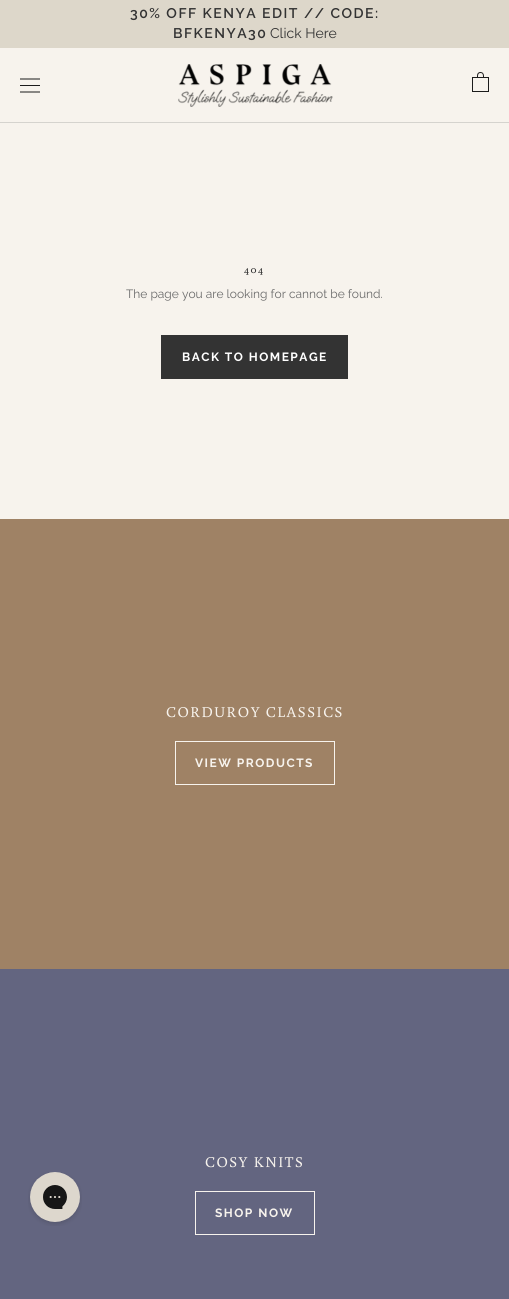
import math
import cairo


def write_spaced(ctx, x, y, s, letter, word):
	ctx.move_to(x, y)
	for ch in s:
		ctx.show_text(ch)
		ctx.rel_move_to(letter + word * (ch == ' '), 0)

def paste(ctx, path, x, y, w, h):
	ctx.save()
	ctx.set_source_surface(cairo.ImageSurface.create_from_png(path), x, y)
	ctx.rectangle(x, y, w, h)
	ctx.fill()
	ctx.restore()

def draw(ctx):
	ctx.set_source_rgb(0.965, 0.953, 0.929)
	ctx.paint()
	ctx.set_source_rgb(0.388, 0.396, 0.502)
	ctx.rectangle(0, 969, 509, 330)
	ctx.fill()
	paste(ctx, 'media/1.png', 28, 1172, 54, 54)
	ctx.set_source_rgb(0.867, 0.843, 0.792)
	ctx.rectangle(0, 0, 509, 48)
	ctx.fill()
	ctx.select_font_face('Raleway SemiBold')
	ctx.set_font_size(14)
	ctx.set_source_rgb(0.2, 0.2, 0.2)
	write_spaced(ctx, 130, 18, '30% OFF KENYA EDIT // CODE:', 1.5, 0)
	write_spaced(ctx, 173, 38, 'BFKENYA30', 1.5, 0)
	ctx.select_font_face('Raleway')
	ctx.move_to(270, 38)
	ctx.show_text('Click Here')
	ctx.set_source_rgb(0.835, 0.827, 0.808)
	ctx.rectangle(0, 122, 509, 1)
	ctx.fill()
	paste(ctx, 'media/2.png', 20, 78, 20, 15)
	paste(ctx, 'media/3.png', 178, 64, 155, 43)
	paste(ctx, 'media/4.png', 472, 72, 17, 20)
	ctx.select_font_face('Buenard')
	ctx.set_font_size(11)
	ctx.set_source_rgb(0.2, 0.2, 0.2)
	write_spaced(ctx, 244, 273, '404', 1.5, 0)
	ctx.select_font_face('Raleway')
	ctx.set_font_size(12)
	ctx.set_source_rgb(0.416, 0.416, 0.416)
	ctx.move_to(126, 298)
	ctx.show_text('The page you are looking for cannot be found.')
	ctx.rectangle(161.5, 335.5, 186, 43)
	ctx.set_source_rgb(0.2, 0.2, 0.2)
	ctx.set_line_width(1)
	ctx.stroke()
	ctx.rectangle(162, 336, 185, 42)
	ctx.fill()
	ctx.select_font_face('Raleway', cairo.FONT_SLANT_NORMAL, cairo.FONT_WEIGHT_BOLD)
	ctx.set_source_rgb(1, 1, 1)
	write_spaced(ctx, 182, 361, 'BACK TO HOMEPAGE', 1.5, 0)
	ctx.set_source_rgb(0.624, 0.51, 0.396)
	ctx.rectangle(0, 519, 509, 450)
	ctx.fill()
	ctx.select_font_face('Buenard')
	ctx.set_font_size(15)
	ctx.set_source_rgb(0.965, 0.953, 0.929)
	write_spaced(ctx, 166, 717, 'CORDUROY CLASSICS', 1.5, 0)
	ctx.rectangle(175.5, 741.5, 159, 43)
	ctx.stroke()
	ctx.select_font_face('Raleway', cairo.FONT_SLANT_NORMAL, cairo.FONT_WEIGHT_BOLD)
	ctx.set_font_size(12)
	write_spaced(ctx, 195, 767, 'VIEW PRODUCTS', 1.5, 0)
	ctx.select_font_face('Buenard')
	ctx.set_font_size(15)
	write_spaced(ctx, 205, 1167, 'COSY KNITS', 1.5, 0)
	ctx.rectangle(195.5, 1191.5, 119, 43)
	ctx.stroke()
	ctx.select_font_face('Raleway', cairo.FONT_SLANT_NORMAL, cairo.FONT_WEIGHT_BOLD)
	ctx.set_font_size(12)
	write_spaced(ctx, 215, 1217, 'SHOP NOW', 1.5, 0)


surface = cairo.ImageSurface(cairo.FORMAT_RGB24, 509, 1299)
ctx = cairo.Context(surface)
options = cairo.FontOptions()
options.set_hint_metrics(cairo.HINT_METRICS_OFF)
options.set_hint_style(cairo.HINT_STYLE_NONE)
ctx.set_font_options(options)
ctx.set_miter_limit(4)
draw(ctx)
surface.write_to_png('image.png')
